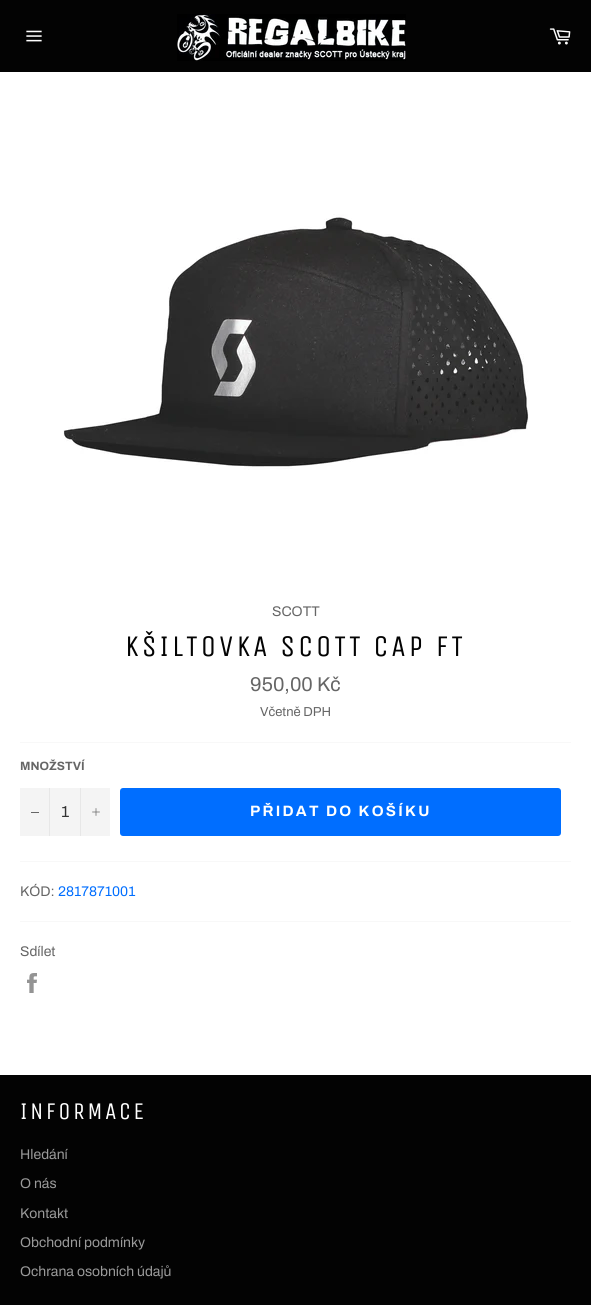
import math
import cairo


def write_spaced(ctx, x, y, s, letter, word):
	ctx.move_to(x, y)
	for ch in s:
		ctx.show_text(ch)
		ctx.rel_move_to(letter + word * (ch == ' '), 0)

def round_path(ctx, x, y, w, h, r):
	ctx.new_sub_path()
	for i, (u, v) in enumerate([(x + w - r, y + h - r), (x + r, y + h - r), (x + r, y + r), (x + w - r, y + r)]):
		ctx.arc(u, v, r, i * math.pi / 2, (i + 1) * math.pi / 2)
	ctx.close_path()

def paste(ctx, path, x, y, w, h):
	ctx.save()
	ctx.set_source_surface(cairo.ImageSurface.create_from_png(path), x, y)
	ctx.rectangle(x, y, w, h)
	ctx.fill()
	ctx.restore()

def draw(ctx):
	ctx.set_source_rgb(0.012, 0.012, 0.012)
	ctx.paint()
	paste(ctx, 'media/1.png', 26, 30, 16, 12)
	paste(ctx, 'media/2.png', 177, 14, 229, 47)
	paste(ctx, 'media/3.png', 549, 28, 22, 17)
	ctx.set_source_rgb(1, 1, 1)
	ctx.rectangle(0, 72, 591, 1003)
	ctx.fill()
	paste(ctx, 'media/4.png', 63, 214, 466, 256)
	ctx.select_font_face('Archivo')
	ctx.set_font_size(14)
	ctx.set_source_rgb(0.4, 0.4, 0.4)
	ctx.move_to(272, 616)
	ctx.show_text('SCOTT')
	ctx.select_font_face('Unica One')
	ctx.set_font_size(30)
	ctx.set_source_rgb(0.012, 0.012, 0.012)
	write_spaced(ctx, 125, 656, 'KŠILTOVKA SCOTT CAP FT', 3, 0)
	ctx.select_font_face('Archivo')
	ctx.set_font_size(20)
	ctx.set_source_rgb(0.4, 0.4, 0.4)
	ctx.move_to(250, 691)
	ctx.show_text('950,00 Kč')
	ctx.set_font_size(13)
	ctx.move_to(260, 716)
	ctx.show_text('Včetně DPH')
	ctx.set_source_rgb(0.969, 0.969, 0.969)
	ctx.rectangle(20, 742, 551, 1)
	ctx.fill()
	ctx.select_font_face('Archivo', cairo.FONT_SLANT_NORMAL, cairo.FONT_WEIGHT_BOLD)
	ctx.set_font_size(12)
	ctx.set_source_rgb(0.4, 0.4, 0.4)
	ctx.move_to(20, 770)
	ctx.show_text('MNOŽSTVÍ')
	ctx.set_source_rgb(0.957, 0.957, 0.957)
	ctx.rectangle(20, 788, 90, 48)
	ctx.fill()
	ctx.set_source_rgb(0.906, 0.906, 0.906)
	ctx.rectangle(49, 788, 1, 48)
	ctx.fill()
	ctx.set_source_rgb(0.4, 0.4, 0.4)
	ctx.rectangle(31, 812, 8, 1)
	ctx.fill()
	ctx.select_font_face('Archivo')
	ctx.set_font_size(16)
	ctx.set_source_rgb(0.2, 0.2, 0.2)
	ctx.move_to(61, 817)
	ctx.show_text('1')
	ctx.set_source_rgb(0.906, 0.906, 0.906)
	ctx.rectangle(80, 788, 1, 48)
	ctx.fill()
	paste(ctx, 'media/5.png', 92, 808, 8, 8)
	ctx.set_source_rgb(0, 0.431, 1)
	round_path(ctx, 120, 788, 441, 48, 3)
	ctx.fill()
	ctx.select_font_face('Archivo', cairo.FONT_SLANT_NORMAL, cairo.FONT_WEIGHT_BOLD)
	ctx.set_font_size(15)
	ctx.set_source_rgb(1, 1, 1)
	write_spaced(ctx, 250, 816, 'PŘIDAT DO KOŠÍKU', 2.25, 0)
	ctx.set_source_rgb(0.969, 0.969, 0.969)
	ctx.rectangle(20, 861, 551, 1)
	ctx.fill()
	ctx.select_font_face('Archivo')
	ctx.set_font_size(14)
	ctx.set_source_rgb(0.4, 0.4, 0.4)
	ctx.move_to(20, 896)
	ctx.show_text('KÓD:')
	ctx.set_source_rgb(0, 0.431, 1)
	ctx.move_to(58, 896)
	ctx.show_text('2817871001')
	ctx.set_source_rgb(0.969, 0.969, 0.969)
	ctx.rectangle(20, 921, 551, 1)
	ctx.fill()
	ctx.set_source_rgb(0.4, 0.4, 0.4)
	ctx.move_to(20, 956)
	ctx.show_text('Sdílet')
	paste(ctx, 'media/6.png', 27, 973, 10, 20)
	ctx.select_font_face('Unica One')
	ctx.set_font_size(24)
	ctx.set_source_rgb(1, 1, 1)
	write_spaced(ctx, 20, 1119, 'INFORMACE', 2.5, 0)
	ctx.select_font_face('Archivo')
	ctx.set_font_size(14)
	ctx.set_source_rgb(0.604, 0.604, 0.604)
	for x, y, s in [
		(20, 1159, 'Hledání'),
		(20, 1188, 'O nás'),
		(20, 1218, 'Kontakt'),
		(20, 1247, 'Obchodní podmínky'),
		(20, 1276, 'Ochrana osobních údajů'),
	]:
		ctx.move_to(x, y)
		ctx.show_text(s)


surface = cairo.ImageSurface(cairo.FORMAT_RGB24, 591, 1305)
ctx = cairo.Context(surface)
options = cairo.FontOptions()
options.set_hint_metrics(cairo.HINT_METRICS_OFF)
options.set_hint_style(cairo.HINT_STYLE_NONE)
ctx.set_font_options(options)
ctx.set_miter_limit(4)
draw(ctx)
surface.write_to_png('image.png')
